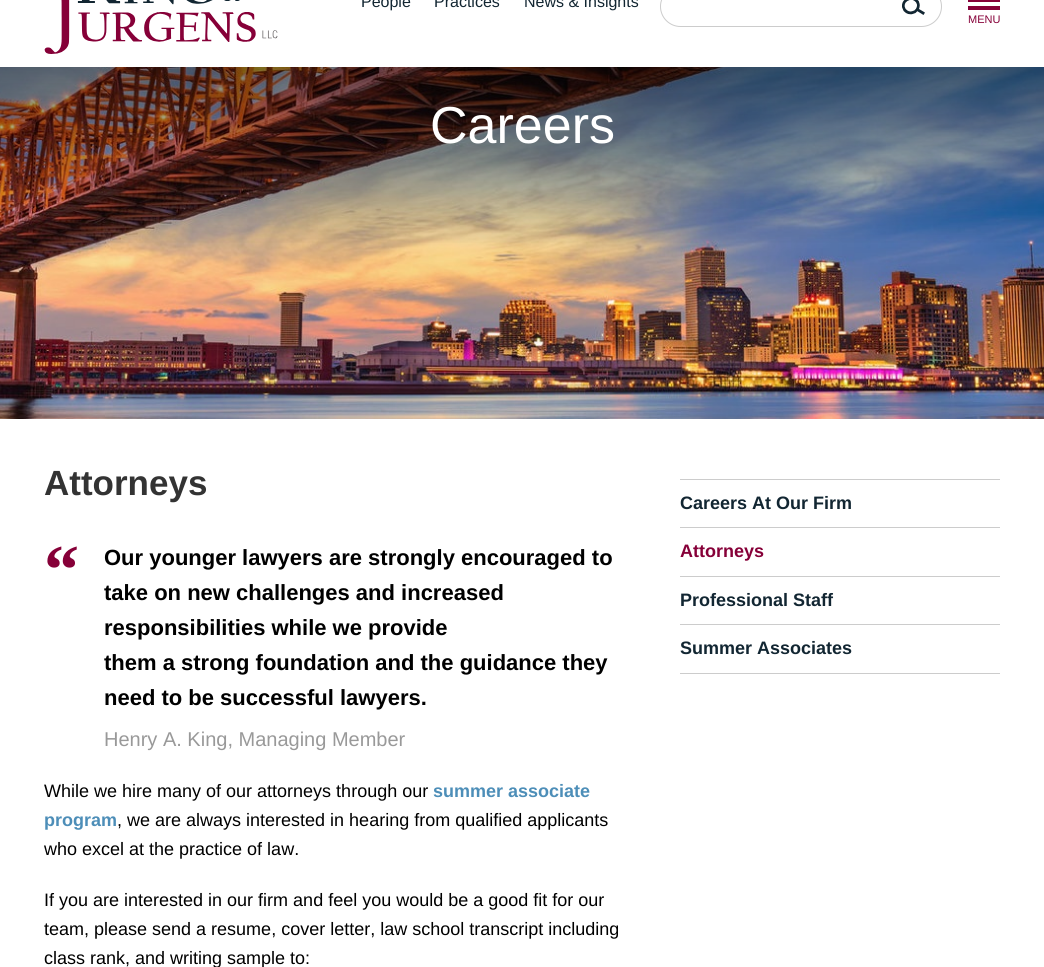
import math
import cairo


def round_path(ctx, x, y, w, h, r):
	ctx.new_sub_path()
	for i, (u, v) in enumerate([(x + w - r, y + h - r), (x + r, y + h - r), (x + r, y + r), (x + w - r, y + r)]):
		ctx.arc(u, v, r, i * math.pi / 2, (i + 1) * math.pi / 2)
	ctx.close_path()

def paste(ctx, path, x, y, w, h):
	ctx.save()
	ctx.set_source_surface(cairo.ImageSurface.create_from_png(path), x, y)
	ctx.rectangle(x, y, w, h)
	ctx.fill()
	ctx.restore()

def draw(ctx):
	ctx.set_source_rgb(1, 1, 1)
	ctx.paint()
	paste(ctx, 'media/1.png', 44, 0, 234, 54)
	ctx.select_font_face('Liberation Sans')
	ctx.set_font_size(16)
	ctx.set_source_rgb(0.071, 0.149, 0.196)
	for x, y, s in [
		(361, 7, 'People'),
		(434, 7, 'Practices'),
		(524, 7, 'News & Insights'),
	]:
		ctx.move_to(x, y)
		ctx.show_text(s)
	round_path(ctx, 660.5, -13.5, 281, 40, 20)
	ctx.set_source_rgb(0.8, 0.8, 0.8)
	ctx.set_line_width(1)
	ctx.stroke()
	paste(ctx, 'media/2.png', 902, 0, 23, 15)
	ctx.set_font_size(11)
	ctx.set_source_rgb(0.525, 0, 0.22)
	ctx.move_to(968, 23)
	ctx.show_text('MENU')
	ctx.rectangle(968, 0, 32, 10)
	ctx.fill()
	ctx.set_source_rgb(1, 1, 1)
	ctx.rectangle(968, 2, 32, 4)
	ctx.fill()
	paste(ctx, 'media/3.png', 0, 67, 1044, 352)
	ctx.set_font_size(52)
	ctx.move_to(430, 143)
	ctx.show_text('Careers')
	ctx.select_font_face('Liberation Sans', cairo.FONT_SLANT_NORMAL, cairo.FONT_WEIGHT_BOLD)
	ctx.set_font_size(35)
	ctx.set_source_rgb(0.2, 0.2, 0.2)
	ctx.move_to(44, 495)
	ctx.show_text('Attorneys')
	ctx.select_font_face('Liberation Serif', cairo.FONT_SLANT_NORMAL, cairo.FONT_WEIGHT_BOLD)
	ctx.set_font_size(70)
	ctx.set_source_rgb(0.525, 0, 0.22)
	ctx.move_to(44, 593)
	ctx.show_text('“')
	ctx.select_font_face('Liberation Sans', cairo.FONT_SLANT_NORMAL, cairo.FONT_WEIGHT_BOLD)
	ctx.set_font_size(22)
	ctx.set_source_rgb(0, 0, 0)
	for x, y, s in [
		(104, 565, 'Our younger lawyers are strongly encouraged to'),
		(104, 600, 'take on new challenges and increased'),
		(104, 635, 'responsibilities while we provide'),
		(104, 670, 'them a strong foundation and the guidance they'),
		(104, 705, 'need to be successful lawyers.'),
	]:
		ctx.move_to(x, y)
		ctx.show_text(s)
	ctx.select_font_face('Liberation Sans')
	ctx.set_font_size(20)
	ctx.set_source_rgb(0.6, 0.6, 0.6)
	ctx.move_to(104, 746)
	ctx.show_text('Henry A. King, Managing Member')
	ctx.set_font_size(18)
	ctx.set_source_rgb(0, 0, 0)
	ctx.move_to(44, 797)
	ctx.show_text('While we hire many of our attorneys through our')
	ctx.select_font_face('Liberation Sans', cairo.FONT_SLANT_NORMAL, cairo.FONT_WEIGHT_BOLD)
	ctx.set_source_rgb(0.302, 0.557, 0.722)
	ctx.move_to(433, 797)
	ctx.show_text('summer associate')
	ctx.move_to(44, 826)
	ctx.show_text('program')
	ctx.select_font_face('Liberation Sans')
	ctx.set_source_rgb(0, 0, 0)
	for x, y, s in [
		(117, 826, ', we are always interested in hearing from qualified applicants'),
		(44, 855, 'who excel at the practice of law.'),
		(44, 906, 'If you are interested in our firm and feel you would be a good fit for our'),
		(44, 935, 'team, please send a resume, cover letter, law school transcript including'),
		(44, 964, 'class rank, and writing sample to:'),
	]:
		ctx.move_to(x, y)
		ctx.show_text(s)
	ctx.set_source_rgb(0.8, 0.8, 0.8)
	ctx.rectangle(680, 479, 320, 1)
	ctx.fill()
	ctx.rectangle(680, 527, 320, 1)
	ctx.fill()
	ctx.select_font_face('Liberation Sans', cairo.FONT_SLANT_NORMAL, cairo.FONT_WEIGHT_BOLD)
	ctx.set_source_rgb(0.071, 0.149, 0.196)
	ctx.move_to(680, 509)
	ctx.show_text('Careers At Our Firm')
	ctx.set_source_rgb(0.8, 0.8, 0.8)
	ctx.rectangle(680, 576, 320, 1)
	ctx.fill()
	ctx.set_source_rgb(0.525, 0, 0.22)
	ctx.move_to(680, 557)
	ctx.show_text('Attorneys')
	ctx.set_source_rgb(0.8, 0.8, 0.8)
	ctx.rectangle(680, 624, 320, 1)
	ctx.fill()
	ctx.set_source_rgb(0.071, 0.149, 0.196)
	ctx.move_to(680, 606)
	ctx.show_text('Professional Staff')
	ctx.set_source_rgb(0.8, 0.8, 0.8)
	ctx.rectangle(680, 673, 320, 1)
	ctx.fill()
	ctx.set_source_rgb(0.071, 0.149, 0.196)
	ctx.move_to(680, 654)
	ctx.show_text('Summer Associates')


surface = cairo.ImageSurface(cairo.FORMAT_RGB24, 1044, 967)
ctx = cairo.Context(surface)
options = cairo.FontOptions()
options.set_hint_metrics(cairo.HINT_METRICS_OFF)
options.set_hint_style(cairo.HINT_STYLE_NONE)
ctx.set_font_options(options)
ctx.set_miter_limit(4)
draw(ctx)
surface.write_to_png('image.png')
